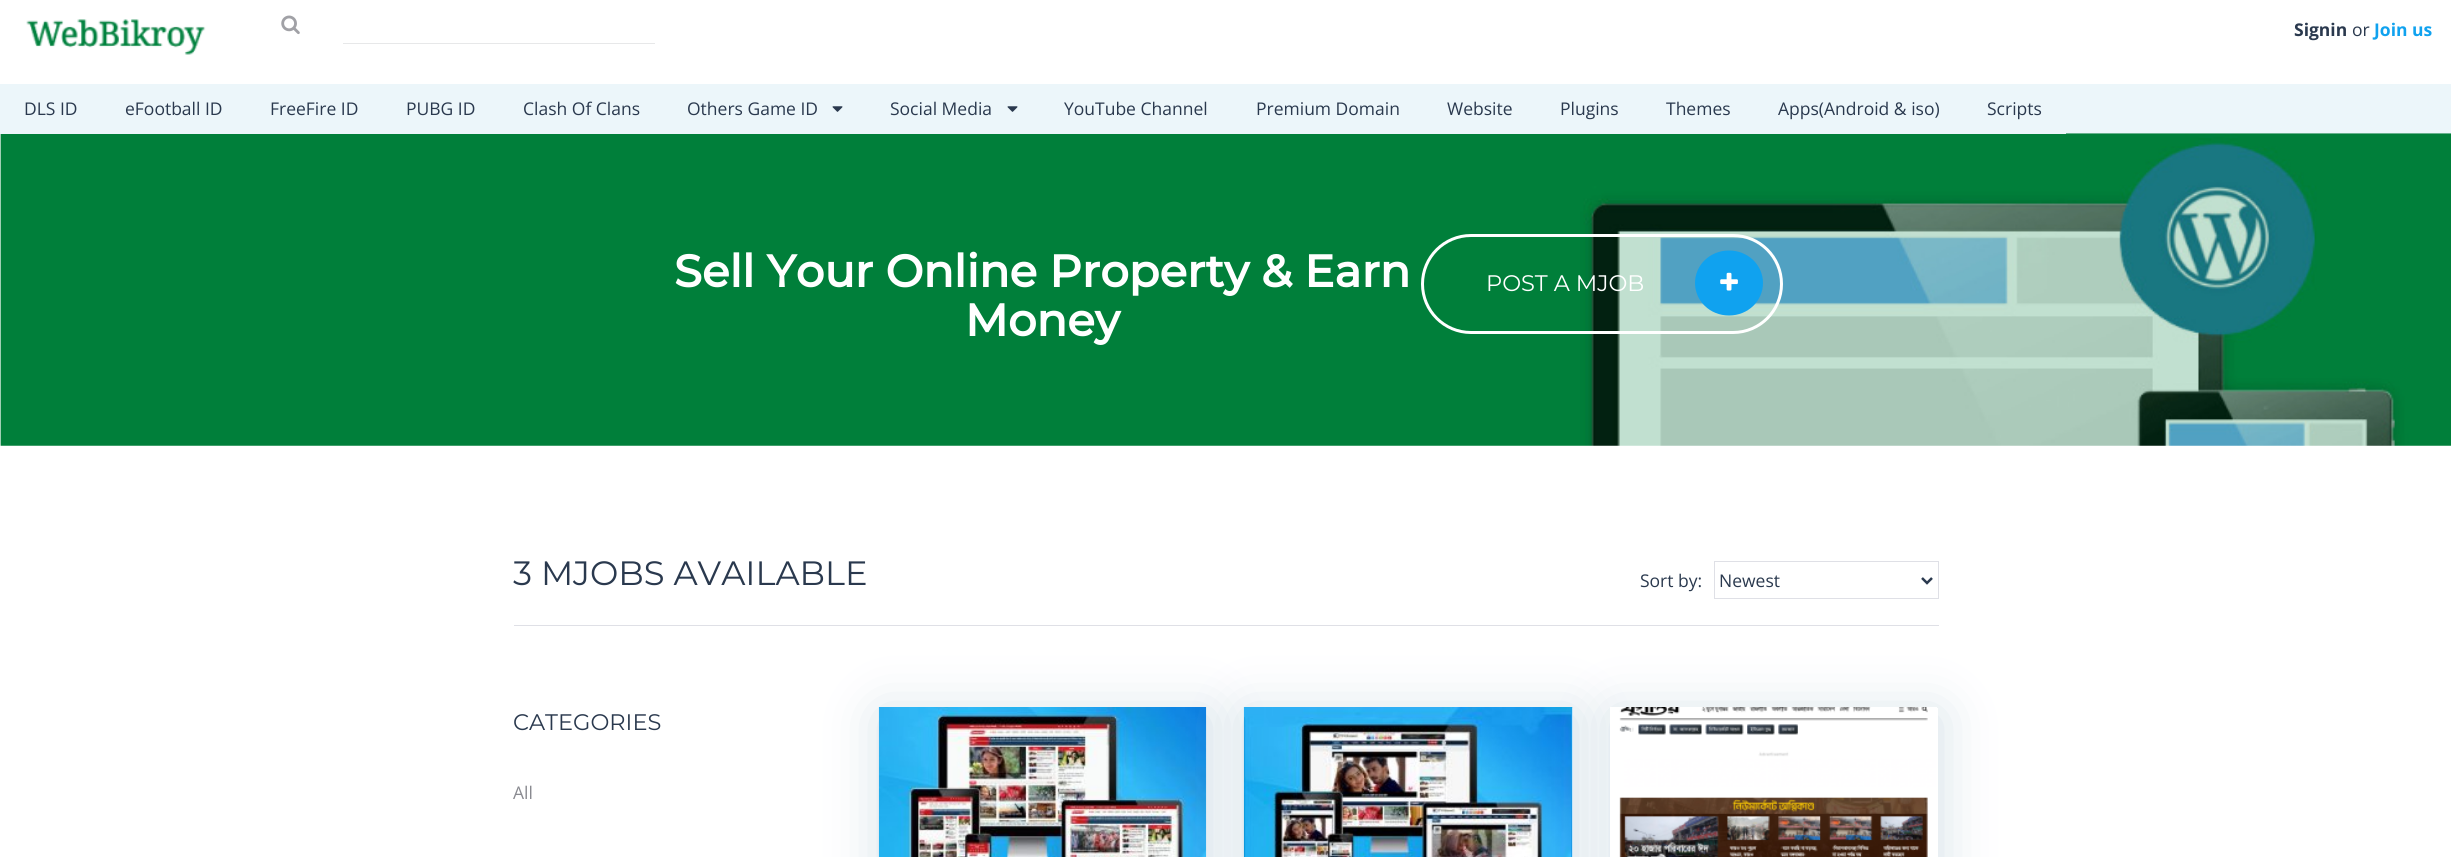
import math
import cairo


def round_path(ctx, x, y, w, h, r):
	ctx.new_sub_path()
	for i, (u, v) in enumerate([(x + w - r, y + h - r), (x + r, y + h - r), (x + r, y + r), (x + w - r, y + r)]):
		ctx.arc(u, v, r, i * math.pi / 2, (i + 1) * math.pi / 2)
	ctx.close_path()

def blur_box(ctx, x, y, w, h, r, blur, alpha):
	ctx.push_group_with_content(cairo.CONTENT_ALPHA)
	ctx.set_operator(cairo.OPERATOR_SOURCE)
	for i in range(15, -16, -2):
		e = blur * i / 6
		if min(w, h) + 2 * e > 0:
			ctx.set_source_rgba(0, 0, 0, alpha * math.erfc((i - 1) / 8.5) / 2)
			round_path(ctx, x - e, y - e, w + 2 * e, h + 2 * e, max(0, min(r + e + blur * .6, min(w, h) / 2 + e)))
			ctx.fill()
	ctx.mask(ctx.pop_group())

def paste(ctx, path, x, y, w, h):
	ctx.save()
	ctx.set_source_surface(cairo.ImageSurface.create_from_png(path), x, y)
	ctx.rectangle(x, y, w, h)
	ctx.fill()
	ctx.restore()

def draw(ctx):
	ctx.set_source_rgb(1, 1, 1)
	ctx.paint()
	paste(ctx, 'media/1.png', 26, 19, 180, 36)
	paste(ctx, 'media/2.png', 281, 15, 19, 20)
	ctx.set_source_rgb(0.906, 0.91, 0.914)
	ctx.rectangle(343, 43, 312, 1)
	ctx.fill()
	ctx.select_font_face('Open Sans', cairo.FONT_SLANT_NORMAL, cairo.FONT_WEIGHT_BOLD)
	ctx.set_font_size(17.5)
	ctx.set_source_rgb(0.165, 0.224, 0.306)
	ctx.move_to(2294, 36)
	ctx.show_text('Signin')
	ctx.select_font_face('Open Sans')
	ctx.move_to(2352, 36)
	ctx.show_text('or')
	ctx.select_font_face('Open Sans', cairo.FONT_SLANT_NORMAL, cairo.FONT_WEIGHT_BOLD)
	ctx.set_source_rgb(0.063, 0.635, 0.937)
	ctx.move_to(2374, 36)
	ctx.show_text('Join us')
	ctx.set_source_rgb(0.925, 0.961, 0.98)
	ctx.rectangle(2066, 84, 385, 50)
	ctx.fill()
	paste(ctx, 'media/4.png', 0, 133, 2451, 313)
	ctx.rectangle(0, 84, 2066, 50)
	ctx.fill()
	ctx.select_font_face('Open Sans')
	ctx.set_source_rgb(0.165, 0.224, 0.306)
	for x, y, s in [
		(24, 115, 'DLS ID'),
		(125, 115, 'eFootball ID'),
		(270, 115, 'FreeFire ID'),
		(406, 115, 'PUBG ID'),
		(523, 115, 'Clash Of Clans'),
		(687, 115, 'Others Game ID'),
	]:
		ctx.move_to(x, y)
		ctx.show_text(s)
	paste(ctx, 'media/3.png', 832, 106, 11, 6)
	ctx.move_to(890, 115)
	ctx.show_text('Social Media')
	paste(ctx, 'media/3.png', 1007, 106, 11, 6)
	for x, y, s in [
		(1064, 115, 'YouTube Channel'),
		(1256, 115, 'Premium Domain'),
		(1447, 115, 'Website'),
		(1560, 115, 'Plugins'),
		(1666, 115, 'Themes'),
		(1778, 115, 'Apps(Android & iso)'),
		(1987, 115, 'Scripts'),
	]:
		ctx.move_to(x, y)
		ctx.show_text(s)
	ctx.select_font_face('Montserrat', cairo.FONT_SLANT_NORMAL, cairo.FONT_WEIGHT_BOLD)
	ctx.set_font_size(45)
	ctx.set_source_rgb(1, 1, 1)
	ctx.move_to(674, 287)
	ctx.show_text('Sell Your Online Property & Earn')
	ctx.move_to(965, 336)
	ctx.show_text('Money')
	round_path(ctx, 1422.5, 235.5, 359, 97, 48.5)
	ctx.set_line_width(3)
	ctx.stroke()
	ctx.select_font_face('Montserrat')
	ctx.set_font_size(22.5)
	ctx.move_to(1486, 291)
	ctx.show_text('POST A MJOB')
	ctx.set_source_rgb(0.063, 0.635, 0.937)
	ctx.new_path()
	ctx.move_to(1729, 250.5)
	ctx.curve_to(1748, 250.5, 1763, 265, 1763, 283)
	ctx.curve_to(1763, 301, 1748, 315.5, 1729, 315.5)
	ctx.curve_to(1710, 315.5, 1695, 301, 1695, 283)
	ctx.curve_to(1695, 265, 1710, 250.5, 1729, 250.5)
	ctx.close_path()
	ctx.fill()
	paste(ctx, 'media/5.png', 1720, 272, 18, 19)
	ctx.set_source_rgb(0.875, 0.878, 0.902)
	ctx.rectangle(514, 625, 1425, 1)
	ctx.fill()
	ctx.set_font_size(33.75)
	ctx.set_source_rgb(0.165, 0.224, 0.306)
	ctx.move_to(513, 585)
	ctx.show_text('3 MJOBS AVAILABLE')
	ctx.select_font_face('Open Sans')
	ctx.set_font_size(17.5)
	ctx.move_to(1640, 587)
	ctx.show_text('Sort by:')
	ctx.rectangle(1714.5, 561.5, 224, 37)
	ctx.set_source_rgb(0.875, 0.878, 0.902)
	ctx.set_line_width(1)
	ctx.stroke()
	ctx.new_path()
	ctx.move_to(1922, 578)
	ctx.line_to(1927, 583)
	ctx.line_to(1932, 578)
	ctx.set_source_rgb(0.165, 0.224, 0.306)
	ctx.set_line_width(2.5)
	ctx.stroke()
	ctx.move_to(1719, 587)
	ctx.show_text('Newest')
	ctx.select_font_face('Montserrat')
	ctx.set_font_size(22.5)
	ctx.move_to(513, 730)
	ctx.show_text('CATEGORIES')
	ctx.select_font_face('Open Sans')
	ctx.set_font_size(17.5)
	ctx.set_source_rgb(0.537, 0.541, 0.565)
	ctx.move_to(513, 799)
	ctx.show_text('All')
	ctx.set_source_rgb(0.737, 0.812, 0.859)
	blur_box(ctx, 881, 714, 328, 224, 0, 27, 0.65)
	paste(ctx, 'media/6.png', 878, 707, 329, 150)
	blur_box(ctx, 1246, 714, 329, 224, 0, 27, 0.65)
	ctx.set_source_rgb(1, 1, 1)
	ctx.rectangle(1572, 708, 1, 149)
	ctx.fill()
	paste(ctx, 'media/7.png', 1243, 707, 330, 150)
	ctx.set_source_rgb(0.737, 0.812, 0.859)
	blur_box(ctx, 1613, 714, 327, 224, 0, 27, 0.65)
	ctx.set_source_rgb(1, 1, 1)
	ctx.rectangle(1937, 708, 1, 149)
	ctx.fill()
	paste(ctx, 'media/8.png', 1610, 707, 327, 150)


surface = cairo.ImageSurface(cairo.FORMAT_RGB24, 2451, 857)
ctx = cairo.Context(surface)
options = cairo.FontOptions()
options.set_hint_metrics(cairo.HINT_METRICS_OFF)
options.set_hint_style(cairo.HINT_STYLE_NONE)
ctx.set_font_options(options)
ctx.set_miter_limit(4)
draw(ctx)
surface.write_to_png('image.png')
